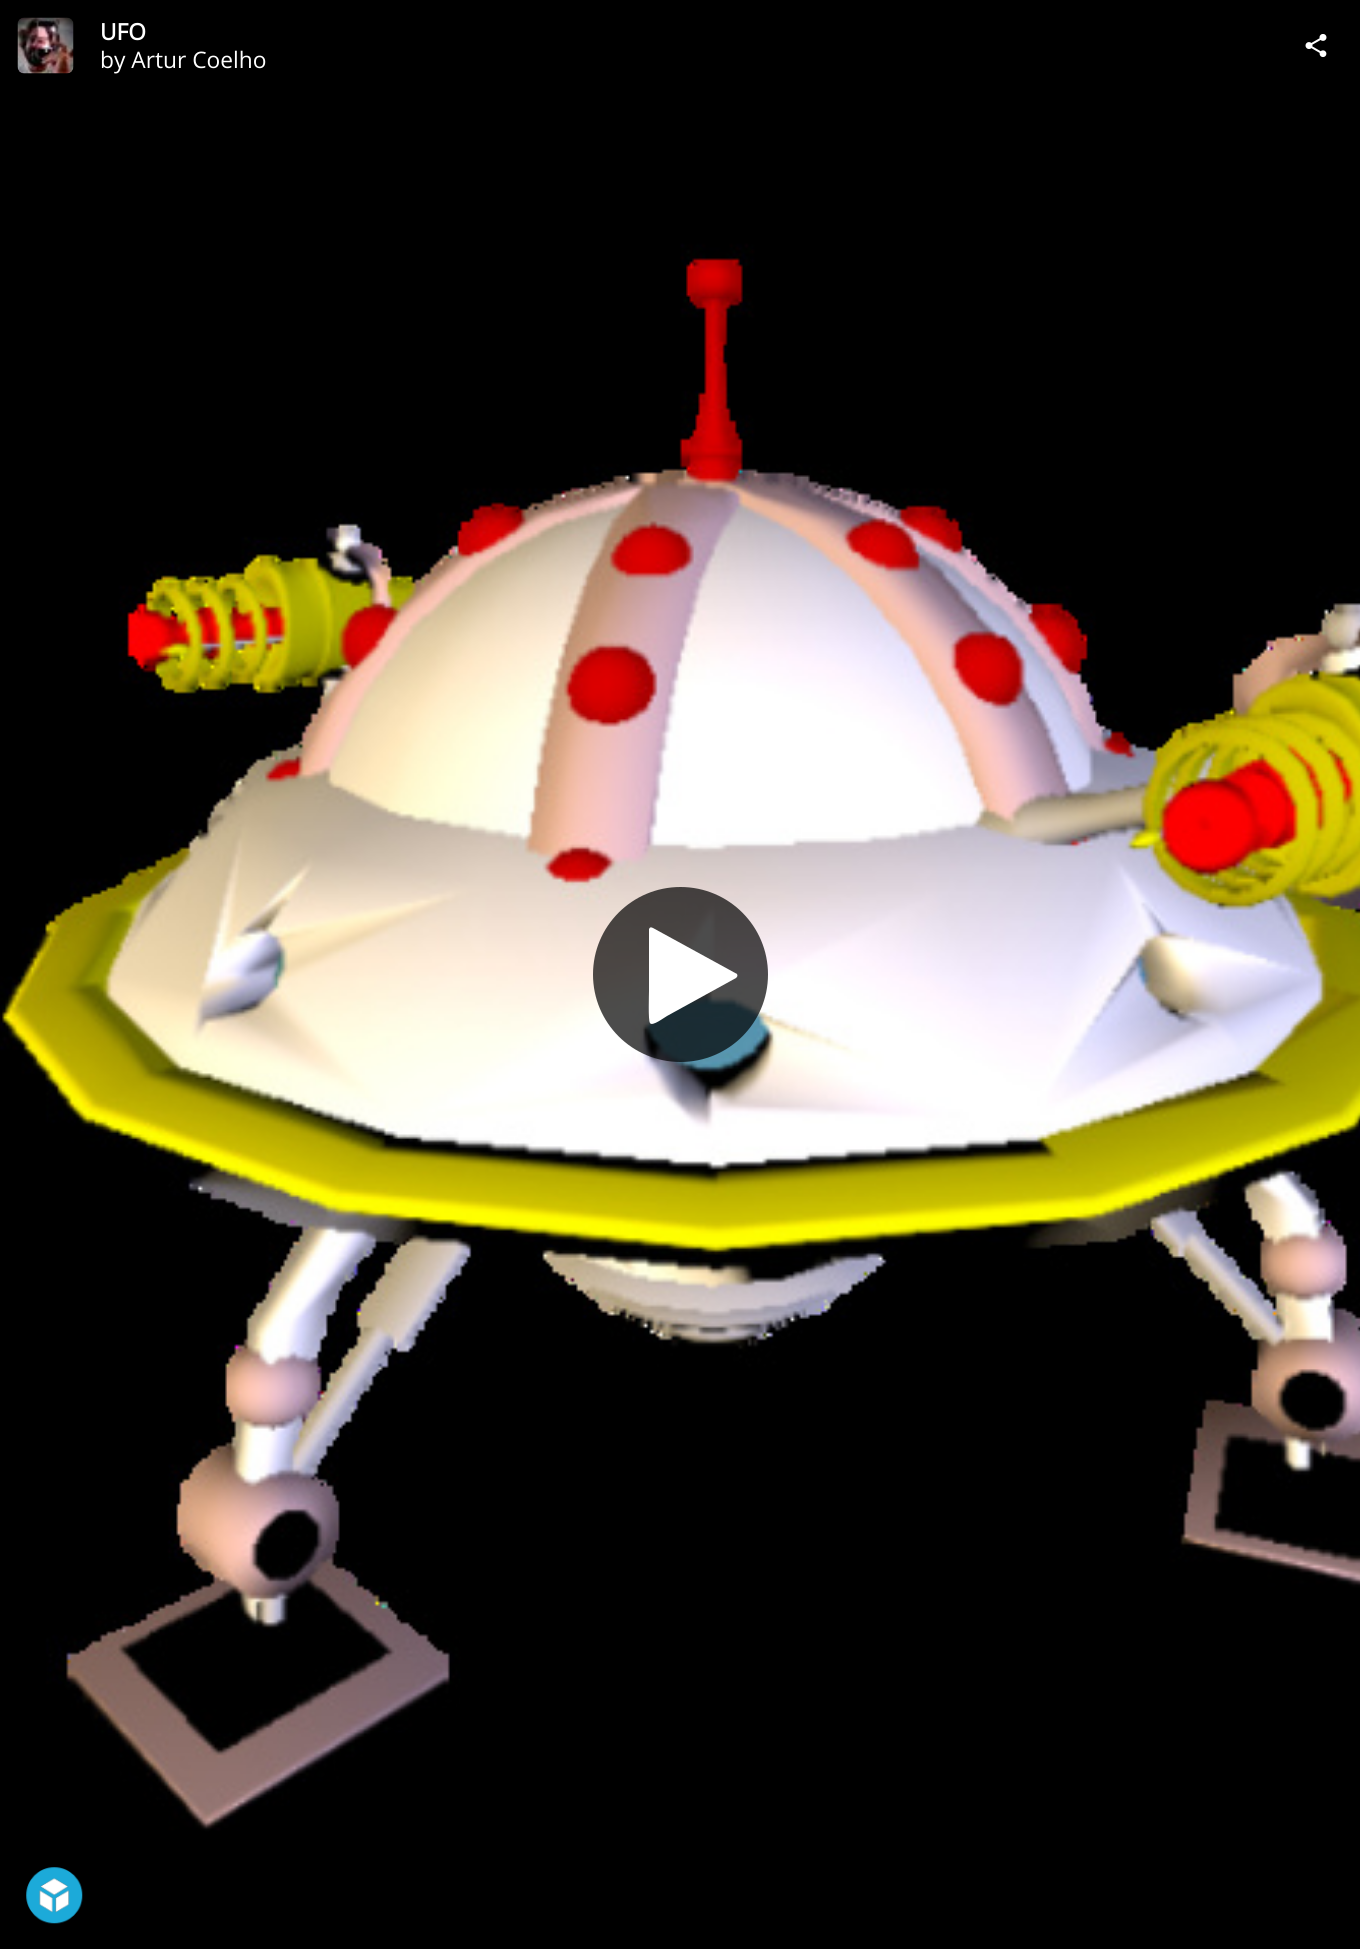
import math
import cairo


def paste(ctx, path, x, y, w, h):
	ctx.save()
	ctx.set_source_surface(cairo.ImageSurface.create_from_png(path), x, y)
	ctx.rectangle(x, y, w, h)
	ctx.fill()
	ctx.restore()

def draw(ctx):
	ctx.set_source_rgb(1, 1, 1)
	ctx.paint()
	paste(ctx, 'media/1.png', 0, 0, 1360, 1949)
	ctx.set_source_rgba(0, 0, 0, 0.7)
	ctx.arc(680.5, 974.5, 87.5, 0, 2 * math.pi)
	ctx.fill()
	ctx.set_source_rgb(1, 1, 1)
	ctx.new_path()
	ctx.move_to(736, 978)
	ctx.line_to(667, 1016)
	ctx.curve_to(665, 1017, 652, 1027, 650, 1023)
	ctx.curve_to(648, 1021, 649, 994, 649, 991)
	ctx.line_to(649, 929)
	ctx.curve_to(650, 927, 651, 927, 653, 928)
	ctx.line_to(737, 974)
	ctx.curve_to(738, 976, 737, 977, 736, 978)
	ctx.close_path()
	ctx.fill()
	paste(ctx, 'media/2.png', 26, 1867, 57, 57)
	paste(ctx, 'media/3.png', 17, 17, 57, 57)
	ctx.select_font_face('Open Sans', cairo.FONT_SLANT_NORMAL, cairo.FONT_WEIGHT_BOLD)
	ctx.set_font_size(22.75)
	ctx.move_to(100, 40)
	ctx.show_text('UFO')
	ctx.select_font_face('Open Sans')
	ctx.move_to(100, 68)
	ctx.show_text('by Artur Coelho')
	paste(ctx, 'media/4.png', 1305, 34, 22, 24)


surface = cairo.ImageSurface(cairo.FORMAT_RGB24, 1360, 1949)
ctx = cairo.Context(surface)
options = cairo.FontOptions()
options.set_hint_metrics(cairo.HINT_METRICS_OFF)
options.set_hint_style(cairo.HINT_STYLE_NONE)
ctx.set_font_options(options)
ctx.set_miter_limit(4)
draw(ctx)
surface.write_to_png('image.png')
